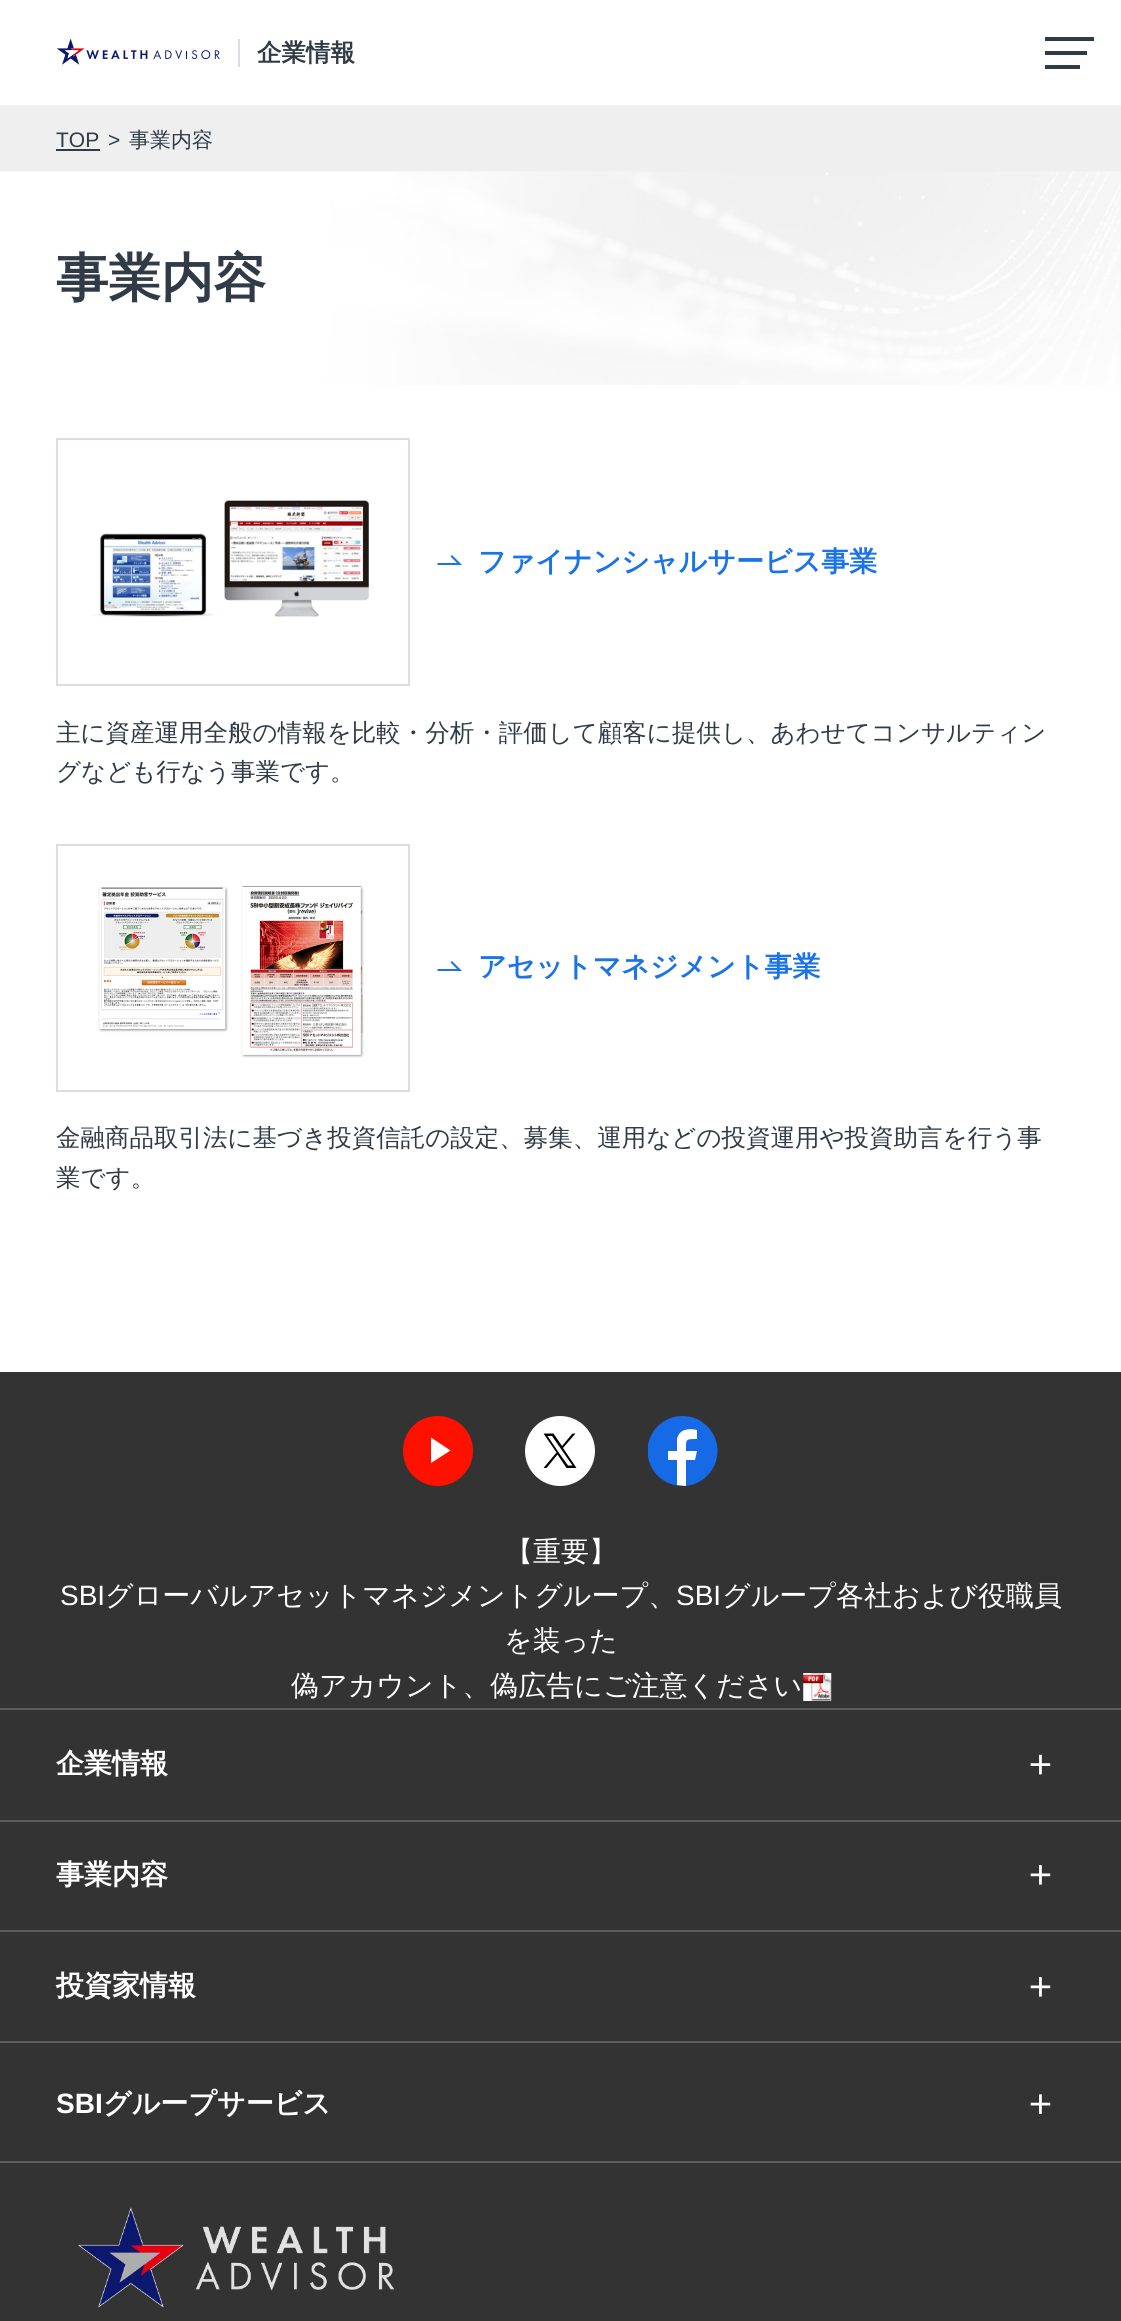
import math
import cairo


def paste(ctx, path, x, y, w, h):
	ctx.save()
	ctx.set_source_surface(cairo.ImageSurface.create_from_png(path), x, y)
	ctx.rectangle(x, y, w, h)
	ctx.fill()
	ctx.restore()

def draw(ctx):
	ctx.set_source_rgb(1, 1, 1)
	ctx.paint()
	ctx.set_source_rgb(0.855, 0.867, 0.89)
	ctx.rectangle(238, 39, 2, 28)
	ctx.fill()
	paste(ctx, 'media/1.png', 56, 39, 164, 26)
	ctx.select_font_face('WenQuanYi Zen Hei', cairo.FONT_SLANT_NORMAL, cairo.FONT_WEIGHT_BOLD)
	ctx.set_font_size(24.5)
	ctx.set_source_rgb(0.188, 0.231, 0.278)
	ctx.move_to(257, 61)
	ctx.show_text('企業情報')
	ctx.rectangle(1045, 37, 49, 4)
	ctx.rectangle(1045, 51, 42, 4)
	ctx.rectangle(1045, 65, 35, 4)
	ctx.fill()
	ctx.set_source_rgb(0.937, 0.937, 0.937)
	ctx.rectangle(0, 105, 1121, 67)
	ctx.fill()
	ctx.select_font_face('Liberation Sans')
	ctx.set_font_size(21)
	ctx.set_source_rgb(0.188, 0.231, 0.278)
	ctx.move_to(56, 147)
	ctx.show_text('TOP')
	ctx.rectangle(56, 149, 44, 2)
	ctx.fill()
	ctx.move_to(108, 147)
	ctx.show_text('>')
	ctx.select_font_face('WenQuanYi Zen Hei Medium')
	ctx.move_to(129, 147)
	ctx.show_text('事業内容')
	paste(ctx, 'media/2.png', 0, 171, 1121, 214)
	ctx.select_font_face('WenQuanYi Zen Hei', cairo.FONT_SLANT_NORMAL, cairo.FONT_WEIGHT_BOLD)
	ctx.set_font_size(52.5)
	ctx.move_to(56, 296)
	ctx.show_text('事業内容')
	ctx.rectangle(57, 439, 352, 246)
	ctx.set_source_rgb(0.855, 0.867, 0.89)
	ctx.stroke()
	paste(ctx, 'media/3.png', 92, 500, 277, 117)
	ctx.set_source_rgb(0.102, 0.451, 0.91)
	ctx.new_path()
	ctx.move_to(462, 565)
	ctx.line_to(437.5, 565)
	ctx.line_to(437.5, 563)
	ctx.line_to(457, 563)
	ctx.line_to(450.5, 556.5)
	ctx.line_to(452, 555)
	ctx.close_path()
	ctx.fill()
	ctx.set_font_size(28)
	ctx.move_to(478, 571)
	ctx.show_text('ファイナンシャルサービス事業')
	ctx.select_font_face('WenQuanYi Zen Hei Medium')
	ctx.set_font_size(24.5)
	ctx.set_source_rgb(0.188, 0.231, 0.278)
	ctx.move_to(56, 741)
	ctx.show_text('主に資産運用全般の情報を比較・分析・評価して顧客に提供し、あわせてコンサルティン')
	ctx.move_to(56, 780)
	ctx.show_text('グなども行なう事業です。')
	ctx.rectangle(57, 845, 352, 246)
	ctx.set_source_rgb(0.855, 0.867, 0.89)
	ctx.stroke()
	paste(ctx, 'media/4.png', 98, 885, 266, 173)
	ctx.set_source_rgb(0.102, 0.451, 0.91)
	ctx.new_path()
	ctx.move_to(462, 971)
	ctx.line_to(437.5, 971)
	ctx.line_to(437.5, 969)
	ctx.line_to(457, 969)
	ctx.line_to(450.5, 962.5)
	ctx.line_to(452, 961)
	ctx.close_path()
	ctx.fill()
	ctx.select_font_face('WenQuanYi Zen Hei', cairo.FONT_SLANT_NORMAL, cairo.FONT_WEIGHT_BOLD)
	ctx.set_font_size(28)
	ctx.move_to(478, 976)
	ctx.show_text('アセットマネジメント事業')
	ctx.select_font_face('WenQuanYi Zen Hei Medium')
	ctx.set_font_size(24.5)
	ctx.set_source_rgb(0.188, 0.231, 0.278)
	ctx.move_to(56, 1146)
	ctx.show_text('金融商品取引法に基づき投資信託の設定、募集、運用などの投資運用や投資助言を行う事')
	ctx.move_to(56, 1186)
	ctx.show_text('業です。')
	ctx.set_source_rgb(0.2, 0.2, 0.2)
	ctx.rectangle(0, 1372, 1121, 949)
	ctx.fill()
	ctx.set_source_rgb(0.361, 0.361, 0.361)
	ctx.rectangle(0, 1708, 1121, 2)
	ctx.fill()
	ctx.set_source_rgb(1, 0.067, 0)
	ctx.new_path()
	ctx.move_to(403, 1451)
	ctx.curve_to(403, 1431, 418, 1416, 438, 1416)
	ctx.curve_to(457, 1416, 473, 1431, 473, 1451)
	ctx.curve_to(473, 1470, 457, 1486, 438, 1486)
	ctx.curve_to(418, 1486, 403, 1470, 403, 1451)
	ctx.fill()
	ctx.set_source_rgb(1, 1, 1)
	ctx.new_path()
	ctx.move_to(431, 1463)
	ctx.line_to(431, 1437.5)
	ctx.line_to(450.5, 1450.5)
	ctx.close_path()
	ctx.fill()
	ctx.arc(560, 1451, 35, 0, 2 * math.pi)
	ctx.fill()
	ctx.set_source_rgb(0, 0, 0)
	ctx.new_path()
	ctx.move_to(563, 1448)
	ctx.line_to(575.5, 1433.5)
	ctx.line_to(572.5, 1433.5)
	ctx.line_to(562, 1446)
	ctx.line_to(553.5, 1433.5)
	ctx.line_to(543.5, 1433.5)
	ctx.line_to(556.5, 1452.5)
	ctx.line_to(543.5, 1468)
	ctx.line_to(546.5, 1468)
	ctx.line_to(557.5, 1454.5)
	ctx.line_to(566.5, 1468)
	ctx.line_to(576.5, 1468)
	ctx.close_path()
	ctx.move_to(559, 1453)
	ctx.line_to(547.5, 1436)
	ctx.line_to(552, 1436)
	ctx.line_to(572.5, 1465.5)
	ctx.line_to(568, 1465.5)
	ctx.close_path()
	ctx.fill()
	ctx.save()
	ctx.rectangle(648, 1416, 70, 70)
	ctx.clip()
	ctx.set_source_rgb(0.09, 0.416, 0.902)
	ctx.arc(682.5, 1451, 35, 0, 2 * math.pi)
	ctx.fill()
	ctx.restore()
	ctx.set_source_rgb(1, 1, 1)
	ctx.new_path()
	ctx.move_to(695, 1460)
	ctx.line_to(697, 1451)
	ctx.line_to(686, 1451)
	ctx.curve_to(686, 1439, 685, 1439, 697, 1439)
	ctx.line_to(697, 1430)
	ctx.curve_to(689, 1428, 679, 1429, 677, 1439)
	ctx.line_to(677, 1451)
	ctx.line_to(668, 1451)
	ctx.line_to(668, 1460)
	ctx.line_to(677, 1460)
	ctx.line_to(677, 1485)
	ctx.line_to(686, 1486)
	ctx.line_to(686, 1460)
	ctx.close_path()
	ctx.fill()
	ctx.set_font_size(28)
	ctx.move_to(505, 1561)
	ctx.show_text('【重要】')
	ctx.select_font_face('Liberation Sans')
	ctx.move_to(60, 1605)
	ctx.show_text('SBI')
	ctx.select_font_face('WenQuanYi Zen Hei Medium')
	ctx.move_to(105, 1605)
	ctx.show_text('グローバルアセットマネジメントグループ、')
	ctx.select_font_face('Liberation Sans')
	ctx.move_to(676, 1605)
	ctx.show_text('SBI')
	ctx.select_font_face('WenQuanYi Zen Hei Medium')
	for x, y, s in [
		(722, 1605, 'グループ各社および役職員'),
		(504, 1650, 'を装った'),
		(291, 1695, '偽アカウント、偽広告にご注意ください'),
	]:
		ctx.move_to(x, y)
		ctx.show_text(s)
	paste(ctx, 'media/5.png', 803, 1673, 29, 28)
	ctx.set_source_rgb(0.361, 0.361, 0.361)
	ctx.rectangle(0, 1820, 1121, 2)
	ctx.fill()
	ctx.select_font_face('WenQuanYi Zen Hei', cairo.FONT_SLANT_NORMAL, cairo.FONT_WEIGHT_BOLD)
	ctx.set_source_rgb(1, 1, 1)
	ctx.move_to(56, 1773)
	ctx.show_text('企業情報')
	paste(ctx, 'media/6.png', 1030, 1754, 21, 21)
	ctx.set_source_rgb(0.361, 0.361, 0.361)
	ctx.rectangle(0, 1930, 1121, 2)
	ctx.fill()
	ctx.set_source_rgb(1, 1, 1)
	ctx.move_to(56, 1884)
	ctx.show_text('事業内容')
	paste(ctx, 'media/7.png', 1030, 1865, 21, 20)
	ctx.set_source_rgb(0.361, 0.361, 0.361)
	ctx.rectangle(0, 2041, 1121, 2)
	ctx.fill()
	ctx.set_source_rgb(1, 1, 1)
	ctx.move_to(56, 1995)
	ctx.show_text('投資家情報')
	paste(ctx, 'media/7.png', 1030, 1977, 21, 20)
	ctx.set_source_rgb(0.361, 0.361, 0.361)
	ctx.rectangle(0, 2161, 1121, 2)
	ctx.fill()
	ctx.select_font_face('Liberation Sans', cairo.FONT_SLANT_NORMAL, cairo.FONT_WEIGHT_BOLD)
	ctx.set_source_rgb(1, 1, 1)
	ctx.move_to(56, 2113)
	ctx.show_text('SBI')
	ctx.select_font_face('WenQuanYi Zen Hei', cairo.FONT_SLANT_NORMAL, cairo.FONT_WEIGHT_BOLD)
	ctx.move_to(103, 2113)
	ctx.show_text('グループサービス')
	paste(ctx, 'media/8.png', 1030, 2094, 21, 20)
	paste(ctx, 'media/9.png', 78, 2207, 317, 101)


surface = cairo.ImageSurface(cairo.FORMAT_RGB24, 1121, 2321)
ctx = cairo.Context(surface)
options = cairo.FontOptions()
options.set_hint_metrics(cairo.HINT_METRICS_OFF)
options.set_hint_style(cairo.HINT_STYLE_NONE)
ctx.set_font_options(options)
ctx.set_miter_limit(4)
draw(ctx)
surface.write_to_png('image.png')
